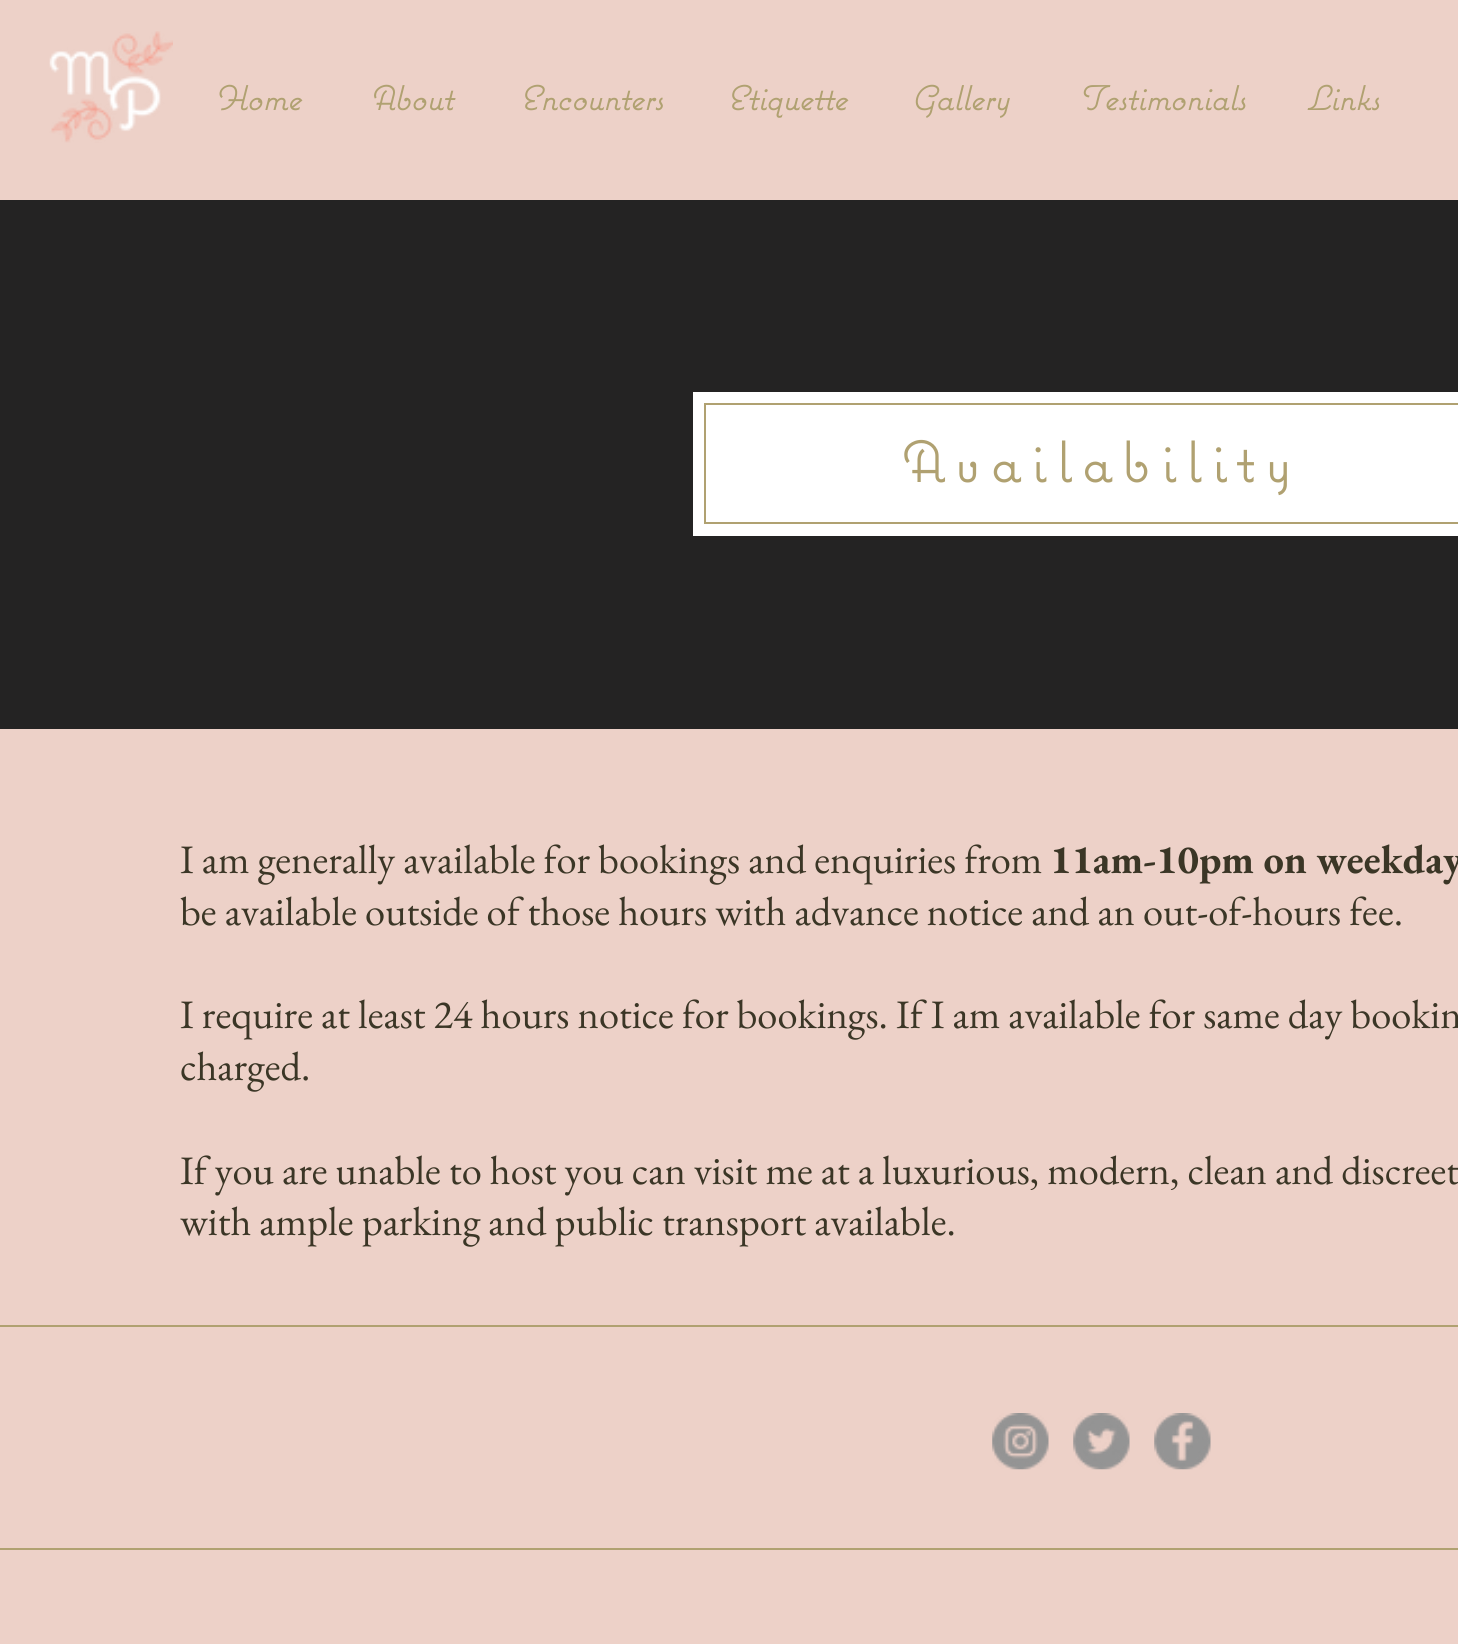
import math
import cairo


def write_spaced(ctx, x, y, s, letter, word):
	ctx.move_to(x, y)
	for ch in s:
		ctx.show_text(ch)
		ctx.rel_move_to(letter + word * (ch == ' '), 0)

def paste(ctx, path, x, y, w, h):
	ctx.save()
	ctx.set_source_surface(cairo.ImageSurface.create_from_png(path), x, y)
	ctx.rectangle(x, y, w, h)
	ctx.fill()
	ctx.restore()

def draw(ctx):
	ctx.set_source_rgb(0.929, 0.82, 0.784)
	ctx.paint()
	paste(ctx, 'media/1.png', 49, 31, 124, 112)
	ctx.select_font_face('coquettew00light', cairo.FONT_SLANT_ITALIC, cairo.FONT_WEIGHT_BOLD)
	ctx.set_font_size(33.75)
	ctx.set_source_rgb(0.69, 0.631, 0.443)
	for x, y, s in [
		(214, 110, 'Home'),
		(369, 110, 'About'),
		(520, 110, 'Encounters'),
		(727, 110, 'Etiquette'),
		(911, 110, 'Gallery'),
		(1078, 110, 'Testimonials'),
		(1307, 110, 'Links'),
	]:
		ctx.move_to(x, y)
		ctx.show_text(s)
	ctx.set_source_rgb(0.141, 0.137, 0.137)
	ctx.rectangle(0, 200, 1458, 529)
	ctx.fill()
	ctx.set_source_rgb(1, 1, 1)
	ctx.rectangle(693, 392, 765, 144)
	ctx.fill()
	ctx.rectangle(705, 404, 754, 119)
	ctx.set_source_rgb(0.69, 0.631, 0.443)
	ctx.stroke()
	ctx.select_font_face('coquettew00light', cairo.FONT_SLANT_NORMAL, cairo.FONT_WEIGHT_BOLD)
	ctx.set_font_size(56.25)
	write_spaced(ctx, 902, 482, 'Availability', 11.25, 0)
	ctx.select_font_face('EB Garamond')
	ctx.set_font_size(40.5)
	ctx.set_source_rgb(0.231, 0.212, 0.149)
	ctx.move_to(180, 873)
	ctx.show_text('I am generally available for bookings and enquiries from')
	ctx.select_font_face('EB Garamond', cairo.FONT_SLANT_NORMAL, cairo.FONT_WEIGHT_BOLD)
	ctx.move_to(1050, 873)
	ctx.show_text('11am-10pm on weekday')
	ctx.select_font_face('EB Garamond')
	for x, y, s in [
		(180, 925, 'be available outside of those hours with advance notice and an out-of-hours fee.'),
		(180, 1028, 'I require at least 24 hours notice for bookings. If I am available for same day bookin'),
		(180, 1080, 'charged.'),
		(180, 1184, 'If you are unable to host you can visit me at a luxurious, modern, clean and discreet'),
		(180, 1235, 'with ample parking and public transport available.'),
	]:
		ctx.move_to(x, y)
		ctx.show_text(s)
	ctx.set_source_rgb(0.69, 0.631, 0.443)
	ctx.rectangle(0, 1325, 1458, 2)
	ctx.fill()
	ctx.rectangle(0, 1548, 1458, 2)
	ctx.fill()
	paste(ctx, 'media/2.png', 992, 1413, 57, 57)
	paste(ctx, 'media/3.png', 1073, 1413, 57, 57)
	paste(ctx, 'media/4.png', 1154, 1413, 57, 57)


surface = cairo.ImageSurface(cairo.FORMAT_RGB24, 1458, 1644)
ctx = cairo.Context(surface)
options = cairo.FontOptions()
options.set_hint_metrics(cairo.HINT_METRICS_OFF)
options.set_hint_style(cairo.HINT_STYLE_NONE)
ctx.set_font_options(options)
ctx.set_miter_limit(4)
draw(ctx)
surface.write_to_png('image.png')
